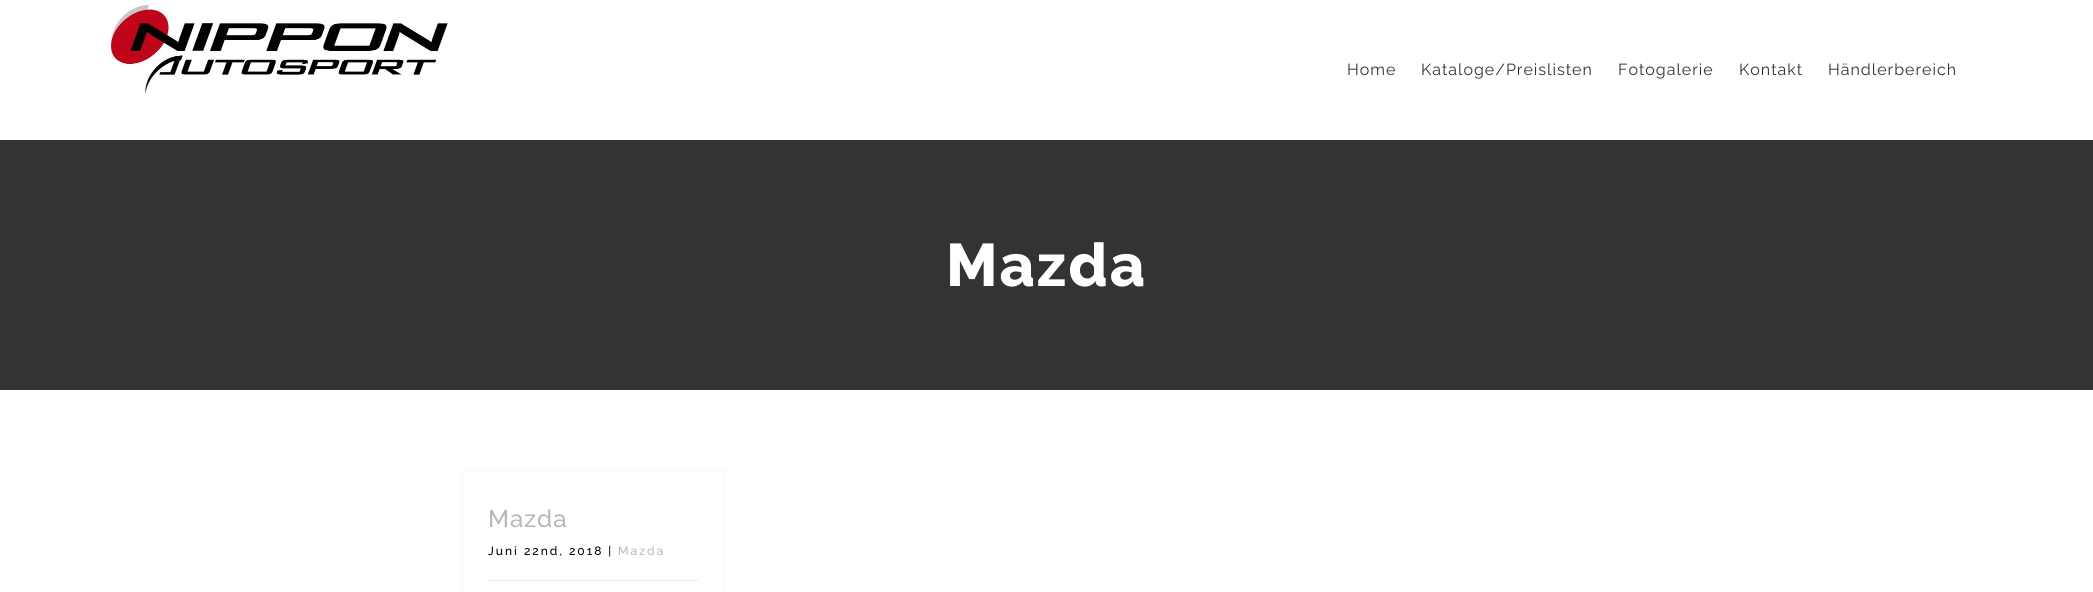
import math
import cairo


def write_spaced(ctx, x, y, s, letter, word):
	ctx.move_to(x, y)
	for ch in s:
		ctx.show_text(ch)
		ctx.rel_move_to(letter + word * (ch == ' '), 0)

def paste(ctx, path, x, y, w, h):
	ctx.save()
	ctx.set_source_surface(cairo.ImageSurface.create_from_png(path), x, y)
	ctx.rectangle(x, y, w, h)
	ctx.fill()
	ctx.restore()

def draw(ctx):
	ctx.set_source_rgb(1, 1, 1)
	ctx.paint()
	paste(ctx, 'media/1.png', 111, 5, 337, 89)
	ctx.select_font_face('Raleway')
	ctx.set_font_size(16)
	ctx.set_source_rgb(0.2, 0.2, 0.2)
	for x, y, s in [
		(1347, 75, 'Home'),
		(1421, 75, 'Kataloge/Preislisten'),
		(1618, 75, 'Fotogalerie'),
		(1739, 75, 'Kontakt'),
		(1828, 75, 'Händlerbereich'),
	]:
		write_spaced(ctx, x, y, s, 1, 0)
	ctx.rectangle(0, 140, 2093, 250)
	ctx.fill()
	ctx.select_font_face('Raleway ExtraBold')
	ctx.set_font_size(60)
	ctx.set_source_rgb(1, 1, 1)
	write_spaced(ctx, 946, 286, 'Mazda', 2, 0)
	ctx.set_source_rgb(0.961, 0.961, 0.961)
	ctx.rectangle(462, 470, 262, 1)
	ctx.rectangle(723, 470, 1, 122)
	ctx.rectangle(462, 470, 1, 122)
	ctx.fill()
	ctx.select_font_face('Raleway Medium')
	ctx.set_font_size(24)
	ctx.set_source_rgb(0.718, 0.718, 0.718)
	write_spaced(ctx, 488, 527, 'Mazda', 1, 0)
	ctx.set_font_size(12)
	ctx.set_source_rgb(0, 0, 0)
	write_spaced(ctx, 488, 555, 'Juni 22nd, 2018 |', 2, 0)
	ctx.set_source_rgb(0.718, 0.718, 0.718)
	write_spaced(ctx, 618, 555, 'Mazda', 2, 0)
	ctx.set_source_rgb(0.918, 0.91, 0.91)
	ctx.rectangle(488, 580, 210, 1)
	ctx.fill()


surface = cairo.ImageSurface(cairo.FORMAT_RGB24, 2093, 592)
ctx = cairo.Context(surface)
options = cairo.FontOptions()
options.set_hint_metrics(cairo.HINT_METRICS_OFF)
options.set_hint_style(cairo.HINT_STYLE_NONE)
ctx.set_font_options(options)
ctx.set_miter_limit(4)
draw(ctx)
surface.write_to_png('image.png')
